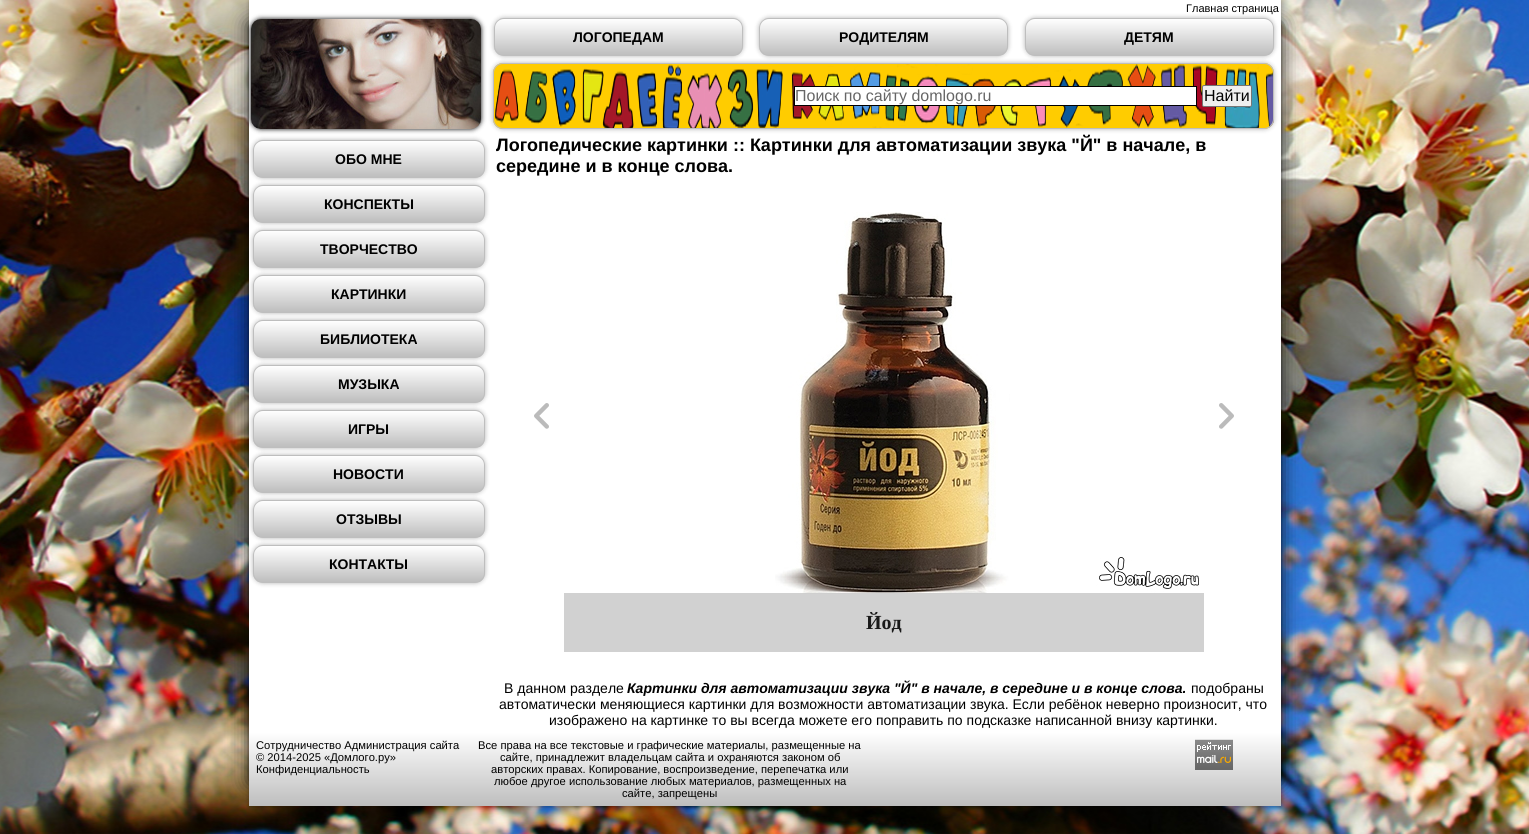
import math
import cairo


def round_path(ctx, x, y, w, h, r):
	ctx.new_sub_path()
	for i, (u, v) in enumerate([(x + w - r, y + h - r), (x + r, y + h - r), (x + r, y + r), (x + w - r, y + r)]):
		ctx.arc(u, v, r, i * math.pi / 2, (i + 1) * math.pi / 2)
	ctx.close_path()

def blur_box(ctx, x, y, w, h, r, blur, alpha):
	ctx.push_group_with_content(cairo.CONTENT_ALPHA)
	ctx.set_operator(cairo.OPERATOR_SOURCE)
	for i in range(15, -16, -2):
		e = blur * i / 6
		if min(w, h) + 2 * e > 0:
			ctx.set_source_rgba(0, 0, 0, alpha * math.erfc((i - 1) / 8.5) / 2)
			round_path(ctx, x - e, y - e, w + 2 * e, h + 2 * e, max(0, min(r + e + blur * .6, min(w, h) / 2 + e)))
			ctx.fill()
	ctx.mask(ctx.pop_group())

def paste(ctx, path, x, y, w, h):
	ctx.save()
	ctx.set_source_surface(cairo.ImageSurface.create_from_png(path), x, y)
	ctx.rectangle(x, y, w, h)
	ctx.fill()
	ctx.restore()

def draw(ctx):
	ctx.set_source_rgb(1, 1, 1)
	ctx.paint()
	paste(ctx, 'media/1.png', 0, 0, 1529, 834)
	ctx.set_source_rgb(0, 0, 0)
	blur_box(ctx, 295, 23, 986, 760, 0, 10, 0.8)
	blur_box(ctx, 249, 23, 986, 760, 0, 10, 0.8)
	blur_box(ctx, 249, 1, 1032, 806, 0, 2, 0.3)
	ctx.set_source_rgb(1, 1, 1)
	ctx.rectangle(249, 0, 1032, 732)
	ctx.fill()
	ctx.select_font_face('Liberation Sans')
	ctx.set_font_size(11)
	ctx.set_source_rgb(0, 0, 0)
	ctx.move_to(1186, 12)
	ctx.show_text('Главная страница')
	ctx.set_source_rgb(0, 0, 0)
	blur_box(ctx, 251, 19, 230, 110, 10, 2.5, 1)
	paste(ctx, 'media/2.png', 251, 19, 230, 110)
	blur_box(ctx, 494, 18, 249, 38, 10, 2.5, 0.3)
	ctx.save()
	round_path(ctx, 494, 18, 249, 38, 10)
	ctx.clip()
	gradient = cairo.LinearGradient(619, 55, 619, 19)
	gradient.add_color_stop_rgba(0, 0.745, 0.745, 0.745, 1)
	gradient.add_color_stop_rgba(1, 1, 1, 1, 1)
	ctx.set_source(gradient)
	ctx.rectangle(494, 19, 249, 36)
	ctx.fill()
	ctx.restore()
	round_path(ctx, 494.5, 18.5, 248, 37, 9.5)
	ctx.set_source_rgb(0.745, 0.745, 0.745)
	ctx.set_line_width(1)
	ctx.stroke()
	ctx.select_font_face('Liberation Sans', cairo.FONT_SLANT_NORMAL, cairo.FONT_WEIGHT_BOLD)
	ctx.set_font_size(14)
	ctx.set_source_rgb(0, 0, 0)
	ctx.move_to(573, 42)
	ctx.show_text('ЛОГОПЕДАМ')
	ctx.set_source_rgb(0, 0, 0)
	blur_box(ctx, 759, 18, 249, 38, 10, 2.5, 0.3)
	ctx.save()
	round_path(ctx, 759, 18, 249, 38, 10)
	ctx.clip()
	gradient = cairo.LinearGradient(884, 55, 884, 19)
	gradient.add_color_stop_rgba(0, 0.745, 0.745, 0.745, 1)
	gradient.add_color_stop_rgba(1, 1, 1, 1, 1)
	ctx.set_source(gradient)
	ctx.rectangle(759, 19, 249, 36)
	ctx.fill()
	ctx.restore()
	round_path(ctx, 759.5, 18.5, 248, 37, 9.5)
	ctx.set_source_rgb(0.745, 0.745, 0.745)
	ctx.stroke()
	ctx.set_source_rgb(0, 0, 0)
	ctx.move_to(839, 42)
	ctx.show_text('РОДИТЕЛЯМ')
	ctx.set_source_rgb(0, 0, 0)
	blur_box(ctx, 1025, 18, 249, 38, 10, 2.5, 0.3)
	ctx.save()
	round_path(ctx, 1025, 18, 249, 38, 10)
	ctx.clip()
	gradient = cairo.LinearGradient(1150, 55, 1150, 19)
	gradient.add_color_stop_rgba(0, 0.745, 0.745, 0.745, 1)
	gradient.add_color_stop_rgba(1, 1, 1, 1, 1)
	ctx.set_source(gradient)
	ctx.rectangle(1025, 19, 249, 36)
	ctx.fill()
	ctx.restore()
	round_path(ctx, 1025.5, 18.5, 248, 37, 9.5)
	ctx.set_source_rgb(0.745, 0.745, 0.745)
	ctx.stroke()
	ctx.set_source_rgb(0, 0, 0)
	ctx.move_to(1124, 42)
	ctx.show_text('ДЕТЯМ')
	ctx.set_source_rgb(0, 0, 0)
	blur_box(ctx, 493, 63, 781, 66, 10, 2.5, 0.3)
	ctx.set_source_rgb(1, 0.8, 0)
	round_path(ctx, 493, 63, 781, 66, 10)
	ctx.fill()
	paste(ctx, 'media/3.png', 495, 64, 779, 64)
	round_path(ctx, 493.5, 63.5, 780, 65, 9.5)
	ctx.set_source_rgb(0.745, 0.745, 0.745)
	ctx.stroke()
	ctx.set_source_rgb(1, 1, 1)
	ctx.rectangle(794.5, 86.5, 402, 19)
	ctx.fill_preserve()
	ctx.set_source_rgb(0, 0, 0)
	ctx.stroke()
	ctx.select_font_face('Liberation Sans')
	ctx.set_font_size(16)
	ctx.set_source_rgb(0.4, 0.4, 0.4)
	ctx.move_to(795, 101)
	ctx.show_text('Поиск по сайту domlogo.ru')
	ctx.set_source_rgb(0.937, 0.937, 0.937)
	round_path(ctx, 1202.5, 85.5, 49, 21, 1.5)
	ctx.fill_preserve()
	ctx.set_source_rgb(0.463, 0.463, 0.463)
	ctx.stroke()
	ctx.set_source_rgb(0, 0, 0)
	ctx.move_to(1204, 101)
	ctx.show_text('Найти')
	ctx.set_source_rgb(0, 0, 0)
	blur_box(ctx, 253, 140, 232, 38, 10, 2.5, 0.3)
	ctx.save()
	round_path(ctx, 253, 140, 232, 38, 10)
	ctx.clip()
	gradient = cairo.LinearGradient(369, 177, 369, 141)
	gradient.add_color_stop_rgba(0, 0.745, 0.745, 0.745, 1)
	gradient.add_color_stop_rgba(1, 1, 1, 1, 1)
	ctx.set_source(gradient)
	ctx.rectangle(253, 141, 232, 36)
	ctx.fill()
	ctx.restore()
	round_path(ctx, 253.5, 140.5, 231, 37, 9.5)
	ctx.set_source_rgb(0.745, 0.745, 0.745)
	ctx.stroke()
	ctx.select_font_face('Liberation Sans', cairo.FONT_SLANT_NORMAL, cairo.FONT_WEIGHT_BOLD)
	ctx.set_font_size(14)
	ctx.set_source_rgb(0, 0, 0)
	ctx.move_to(335, 164)
	ctx.show_text('ОБО МНЕ')
	ctx.set_source_rgb(0, 0, 0)
	blur_box(ctx, 253, 185, 232, 38, 10, 2.5, 0.3)
	ctx.save()
	round_path(ctx, 253, 185, 232, 38, 10)
	ctx.clip()
	gradient = cairo.LinearGradient(369, 222, 369, 186)
	gradient.add_color_stop_rgba(0, 0.745, 0.745, 0.745, 1)
	gradient.add_color_stop_rgba(1, 1, 1, 1, 1)
	ctx.set_source(gradient)
	ctx.rectangle(253, 186, 232, 36)
	ctx.fill()
	ctx.restore()
	round_path(ctx, 253.5, 185.5, 231, 37, 9.5)
	ctx.set_source_rgb(0.745, 0.745, 0.745)
	ctx.stroke()
	ctx.set_source_rgb(0, 0, 0)
	ctx.move_to(324, 209)
	ctx.show_text('КОНСПЕКТЫ')
	ctx.set_source_rgb(0, 0, 0)
	blur_box(ctx, 253, 230, 232, 38, 10, 2.5, 0.3)
	ctx.save()
	round_path(ctx, 253, 230, 232, 38, 10)
	ctx.clip()
	gradient = cairo.LinearGradient(369, 267, 369, 231)
	gradient.add_color_stop_rgba(0, 0.745, 0.745, 0.745, 1)
	gradient.add_color_stop_rgba(1, 1, 1, 1, 1)
	ctx.set_source(gradient)
	ctx.rectangle(253, 231, 232, 36)
	ctx.fill()
	ctx.restore()
	round_path(ctx, 253.5, 230.5, 231, 37, 9.5)
	ctx.set_source_rgb(0.745, 0.745, 0.745)
	ctx.stroke()
	ctx.set_source_rgb(0, 0, 0)
	ctx.move_to(320, 254)
	ctx.show_text('ТВОРЧЕСТВО')
	ctx.set_source_rgb(0, 0, 0)
	blur_box(ctx, 253, 275, 232, 38, 10, 2.5, 0.3)
	ctx.save()
	round_path(ctx, 253, 275, 232, 38, 10)
	ctx.clip()
	gradient = cairo.LinearGradient(369, 312, 369, 276)
	gradient.add_color_stop_rgba(0, 0.745, 0.745, 0.745, 1)
	gradient.add_color_stop_rgba(1, 1, 1, 1, 1)
	ctx.set_source(gradient)
	ctx.rectangle(253, 276, 232, 36)
	ctx.fill()
	ctx.restore()
	round_path(ctx, 253.5, 275.5, 231, 37, 9.5)
	ctx.set_source_rgb(0.745, 0.745, 0.745)
	ctx.stroke()
	ctx.set_source_rgb(0, 0, 0)
	ctx.move_to(331, 299)
	ctx.show_text('КАРТИНКИ')
	ctx.set_source_rgb(0, 0, 0)
	blur_box(ctx, 253, 320, 232, 38, 10, 2.5, 0.3)
	ctx.save()
	round_path(ctx, 253, 320, 232, 38, 10)
	ctx.clip()
	gradient = cairo.LinearGradient(369, 357, 369, 321)
	gradient.add_color_stop_rgba(0, 0.745, 0.745, 0.745, 1)
	gradient.add_color_stop_rgba(1, 1, 1, 1, 1)
	ctx.set_source(gradient)
	ctx.rectangle(253, 321, 232, 36)
	ctx.fill()
	ctx.restore()
	round_path(ctx, 253.5, 320.5, 231, 37, 9.5)
	ctx.set_source_rgb(0.745, 0.745, 0.745)
	ctx.stroke()
	ctx.set_source_rgb(0, 0, 0)
	ctx.move_to(320, 344)
	ctx.show_text('БИБЛИОТЕКА')
	ctx.set_source_rgb(0, 0, 0)
	blur_box(ctx, 253, 365, 232, 38, 10, 2.5, 0.3)
	ctx.save()
	round_path(ctx, 253, 365, 232, 38, 10)
	ctx.clip()
	gradient = cairo.LinearGradient(369, 402, 369, 366)
	gradient.add_color_stop_rgba(0, 0.745, 0.745, 0.745, 1)
	gradient.add_color_stop_rgba(1, 1, 1, 1, 1)
	ctx.set_source(gradient)
	ctx.rectangle(253, 366, 232, 36)
	ctx.fill()
	ctx.restore()
	round_path(ctx, 253.5, 365.5, 231, 37, 9.5)
	ctx.set_source_rgb(0.745, 0.745, 0.745)
	ctx.stroke()
	ctx.set_source_rgb(0, 0, 0)
	ctx.move_to(338, 389)
	ctx.show_text('МУЗЫКА')
	ctx.set_source_rgb(0, 0, 0)
	blur_box(ctx, 253, 410, 232, 38, 10, 2.5, 0.3)
	ctx.save()
	round_path(ctx, 253, 410, 232, 38, 10)
	ctx.clip()
	gradient = cairo.LinearGradient(369, 447, 369, 411)
	gradient.add_color_stop_rgba(0, 0.745, 0.745, 0.745, 1)
	gradient.add_color_stop_rgba(1, 1, 1, 1, 1)
	ctx.set_source(gradient)
	ctx.rectangle(253, 411, 232, 36)
	ctx.fill()
	ctx.restore()
	round_path(ctx, 253.5, 410.5, 231, 37, 9.5)
	ctx.set_source_rgb(0.745, 0.745, 0.745)
	ctx.stroke()
	ctx.set_source_rgb(0, 0, 0)
	ctx.move_to(348, 434)
	ctx.show_text('ИГРЫ')
	ctx.set_source_rgb(0, 0, 0)
	blur_box(ctx, 253, 455, 232, 38, 10, 2.5, 0.3)
	ctx.save()
	round_path(ctx, 253, 455, 232, 38, 10)
	ctx.clip()
	gradient = cairo.LinearGradient(369, 492, 369, 456)
	gradient.add_color_stop_rgba(0, 0.745, 0.745, 0.745, 1)
	gradient.add_color_stop_rgba(1, 1, 1, 1, 1)
	ctx.set_source(gradient)
	ctx.rectangle(253, 456, 232, 36)
	ctx.fill()
	ctx.restore()
	round_path(ctx, 253.5, 455.5, 231, 37, 9.5)
	ctx.set_source_rgb(0.745, 0.745, 0.745)
	ctx.stroke()
	ctx.set_source_rgb(0, 0, 0)
	ctx.move_to(333, 479)
	ctx.show_text('НОВОСТИ')
	ctx.set_source_rgb(0, 0, 0)
	blur_box(ctx, 253, 500, 232, 38, 10, 2.5, 0.3)
	ctx.save()
	round_path(ctx, 253, 500, 232, 38, 10)
	ctx.clip()
	gradient = cairo.LinearGradient(369, 537, 369, 501)
	gradient.add_color_stop_rgba(0, 0.745, 0.745, 0.745, 1)
	gradient.add_color_stop_rgba(1, 1, 1, 1, 1)
	ctx.set_source(gradient)
	ctx.rectangle(253, 501, 232, 36)
	ctx.fill()
	ctx.restore()
	round_path(ctx, 253.5, 500.5, 231, 37, 9.5)
	ctx.set_source_rgb(0.745, 0.745, 0.745)
	ctx.stroke()
	ctx.set_source_rgb(0, 0, 0)
	ctx.move_to(336, 524)
	ctx.show_text('ОТЗЫВЫ')
	ctx.set_source_rgb(0, 0, 0)
	blur_box(ctx, 253, 545, 232, 38, 10, 2.5, 0.3)
	ctx.save()
	round_path(ctx, 253, 545, 232, 38, 10)
	ctx.clip()
	gradient = cairo.LinearGradient(369, 582, 369, 546)
	gradient.add_color_stop_rgba(0, 0.745, 0.745, 0.745, 1)
	gradient.add_color_stop_rgba(1, 1, 1, 1, 1)
	ctx.set_source(gradient)
	ctx.rectangle(253, 546, 232, 36)
	ctx.fill()
	ctx.restore()
	round_path(ctx, 253.5, 545.5, 231, 37, 9.5)
	ctx.set_source_rgb(0.745, 0.745, 0.745)
	ctx.stroke()
	ctx.set_source_rgb(0, 0, 0)
	ctx.move_to(329, 569)
	ctx.show_text('КОНТАКТЫ')
	ctx.set_font_size(18)
	ctx.move_to(496, 151)
	ctx.show_text('Логопедические картинки :: Картинки для автоматизации звука "Й" в начале, в')
	ctx.move_to(496, 172)
	ctx.show_text('середине и в конце слова.')
	paste(ctx, 'media/4.png', 534, 403, 15, 26)
	paste(ctx, 'media/5.png', 1219, 403, 15, 26)
	paste(ctx, 'media/6.png', 775, 212, 424, 382)
	ctx.set_source_rgba(0.8, 0.8, 0.8, 0.9)
	ctx.rectangle(564, 593, 640, 59)
	ctx.fill()
	ctx.select_font_face('Liberation Serif', cairo.FONT_SLANT_NORMAL, cairo.FONT_WEIGHT_BOLD)
	ctx.set_font_size(20)
	ctx.set_source_rgb(0.102, 0.102, 0.102)
	ctx.move_to(866, 629)
	ctx.show_text('Йод')
	ctx.select_font_face('Liberation Sans')
	ctx.set_font_size(14)
	ctx.set_source_rgb(0, 0, 0)
	ctx.move_to(504, 693)
	ctx.show_text('В данном разделе')
	ctx.select_font_face('Liberation Sans', cairo.FONT_SLANT_ITALIC, cairo.FONT_WEIGHT_BOLD)
	ctx.move_to(627, 693)
	ctx.show_text('Картинки для автоматизации звука "Й" в начале, в середине и в конце слова.')
	ctx.select_font_face('Liberation Sans')
	for x, y, s in [
		(1191, 693, 'подобраны'),
		(499, 709, 'автоматически меняющиеся картинки для возможности автоматизации звука. Если ребёнок неверно произносит, что'),
		(549, 725, 'изображено на картинке то вы всегда можете его поправить по подсказке написанной внизу картинки.'),
	]:
		ctx.move_to(x, y)
		ctx.show_text(s)
	gradient = cairo.LinearGradient(765, 806, 765, 732)
	gradient.add_color_stop_rgba(0, 0.745, 0.745, 0.745, 1)
	gradient.add_color_stop_rgba(1, 1, 1, 1, 1)
	ctx.set_source(gradient)
	ctx.rectangle(249, 732, 1032, 74)
	ctx.fill()
	ctx.set_font_size(11.2)
	ctx.set_source_rgb(0, 0, 0)
	for x, y, s in [
		(256, 749, 'Сотрудничество Администрация сайта'),
		(256, 761, '© 2014-2025 «Домлого.ру»'),
		(256, 773, 'Конфиденциальность'),
		(478, 749, 'Все права на все текстовые и графические материалы, размещенные на'),
		(500, 761, 'сайте, принадлежит владельцам сайта и охраняются законом об'),
		(491, 773, 'авторских правах. Копирование, воспроизведение, перепечатка или'),
		(494, 785, 'любое другое использование любых материалов, размещенных на'),
		(622, 797, 'сайте, запрещены'),
	]:
		ctx.move_to(x, y)
		ctx.show_text(s)
	paste(ctx, 'media/7.png', 1195, 739, 38, 31)


surface = cairo.ImageSurface(cairo.FORMAT_RGB24, 1529, 834)
ctx = cairo.Context(surface)
options = cairo.FontOptions()
options.set_hint_metrics(cairo.HINT_METRICS_OFF)
options.set_hint_style(cairo.HINT_STYLE_NONE)
ctx.set_font_options(options)
ctx.set_miter_limit(4)
draw(ctx)
surface.write_to_png('image.png')
